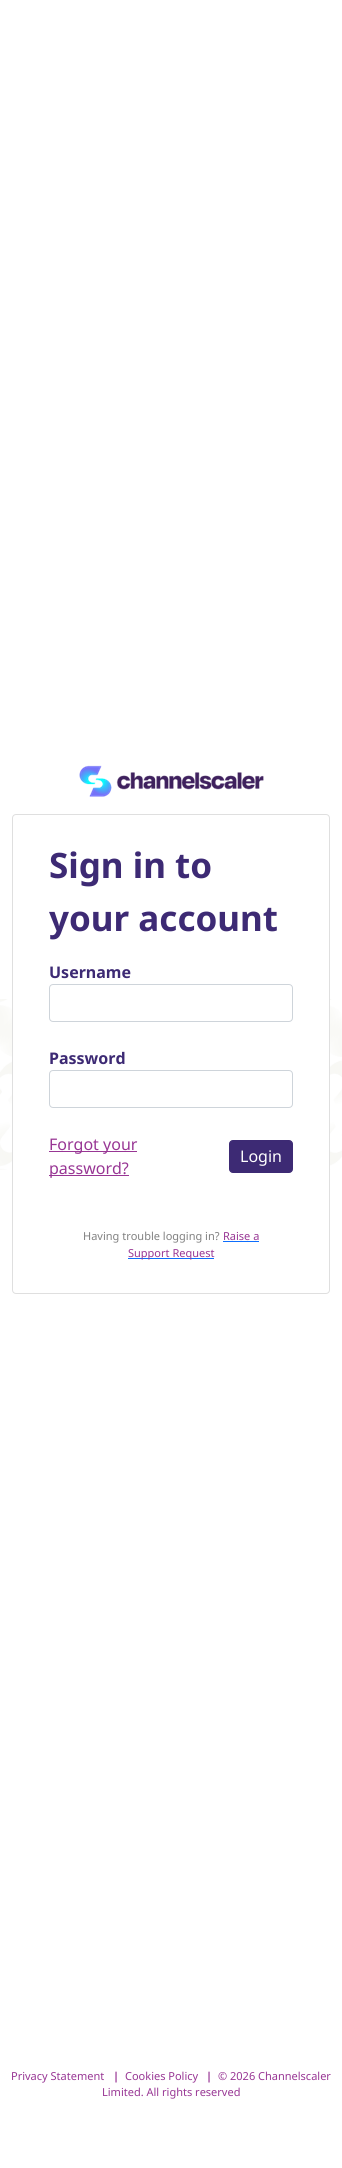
import math
import cairo


def round_path(ctx, x, y, w, h, r):
	ctx.new_sub_path()
	for i, (u, v) in enumerate([(x + w - r, y + h - r), (x + r, y + h - r), (x + r, y + r), (x + w - r, y + r)]):
		ctx.arc(u, v, r, i * math.pi / 2, (i + 1) * math.pi / 2)
	ctx.close_path()

def paste(ctx, path, x, y, w, h):
	ctx.save()
	ctx.set_source_surface(cairo.ImageSurface.create_from_png(path), x, y)
	ctx.rectangle(x, y, w, h)
	ctx.fill()
	ctx.restore()

def draw(ctx):
	ctx.set_source_rgb(1, 1, 1)
	ctx.paint()
	paste(ctx, 'media/1.png', 0, 999, 342, 171)
	paste(ctx, 'media/2.png', 79, 765, 185, 32)
	ctx.set_source_rgb(1, 1, 1)
	round_path(ctx, 12.5, 814.5, 317, 479, 3.5)
	ctx.fill_preserve()
	ctx.set_source_rgb(0.875, 0.875, 0.875)
	ctx.set_line_width(1)
	ctx.stroke()
	ctx.select_font_face('Noto Sans', cairo.FONT_SLANT_NORMAL, cairo.FONT_WEIGHT_BOLD)
	ctx.set_font_size(35)
	ctx.set_source_rgb(0.239, 0.165, 0.455)
	ctx.move_to(49, 878)
	ctx.show_text('Sign in to')
	ctx.move_to(49, 931)
	ctx.show_text('your account')
	ctx.set_font_size(16)
	ctx.move_to(49, 978)
	ctx.show_text('Username')
	round_path(ctx, 49.5, 984.5, 243, 37, 3.5)
	ctx.set_source_rgb(0.808, 0.831, 0.855)
	ctx.stroke()
	ctx.set_source_rgb(0.239, 0.165, 0.455)
	ctx.move_to(49, 1064)
	ctx.show_text('Password')
	round_path(ctx, 49.5, 1070.5, 243, 37, 3.5)
	ctx.set_source_rgb(0.808, 0.831, 0.855)
	ctx.stroke()
	ctx.set_source_rgb(0.596, 0.212, 0.58)
	ctx.rectangle(49, 1151, 88, 1)
	ctx.fill()
	ctx.select_font_face('Noto Sans')
	ctx.move_to(49, 1150)
	ctx.show_text('Forgot your')
	ctx.rectangle(49, 1175, 80, 1)
	ctx.fill()
	ctx.move_to(49, 1174)
	ctx.show_text('password?')
	ctx.set_source_rgb(0.239, 0.165, 0.455)
	round_path(ctx, 229.5, 1140.5, 63, 32, 3.5)
	ctx.fill_preserve()
	ctx.stroke()
	ctx.set_source_rgb(1, 1, 1)
	ctx.move_to(240, 1162)
	ctx.show_text('Login')
	ctx.set_font_size(11)
	ctx.set_source_rgb(0.506, 0.506, 0.506)
	ctx.move_to(83, 1240)
	ctx.show_text('Having trouble logging in?')
	ctx.set_source_rgb(0.596, 0.212, 0.58)
	ctx.move_to(223, 1240)
	ctx.show_text('Raise a')
	ctx.set_source_rgb(0.051, 0.431, 0.992)
	ctx.rectangle(223, 1241, 36, 1)
	ctx.fill()
	ctx.rectangle(128, 1258, 86, 1)
	ctx.fill()
	ctx.set_source_rgb(0.596, 0.212, 0.58)
	ctx.move_to(128, 1257)
	ctx.show_text('Support Request')
	ctx.move_to(11, 2080)
	ctx.show_text('Privacy Statement')
	ctx.select_font_face('Noto Sans', cairo.FONT_SLANT_NORMAL, cairo.FONT_WEIGHT_BOLD)
	ctx.move_to(113, 2080)
	ctx.show_text('|')
	ctx.select_font_face('Noto Sans')
	ctx.move_to(125, 2080)
	ctx.show_text('Cookies Policy')
	ctx.select_font_face('Noto Sans', cairo.FONT_SLANT_NORMAL, cairo.FONT_WEIGHT_BOLD)
	ctx.move_to(206, 2080)
	ctx.show_text('|')
	ctx.select_font_face('Noto Sans')
	ctx.move_to(218, 2080)
	ctx.show_text('© 2026 Channelscaler')
	ctx.move_to(102, 2096)
	ctx.show_text('Limited. All rights reserved')


surface = cairo.ImageSurface(cairo.FORMAT_RGB24, 342, 2168)
ctx = cairo.Context(surface)
options = cairo.FontOptions()
options.set_hint_metrics(cairo.HINT_METRICS_OFF)
options.set_hint_style(cairo.HINT_STYLE_NONE)
ctx.set_font_options(options)
ctx.set_miter_limit(4)
draw(ctx)
surface.write_to_png('image.png')
